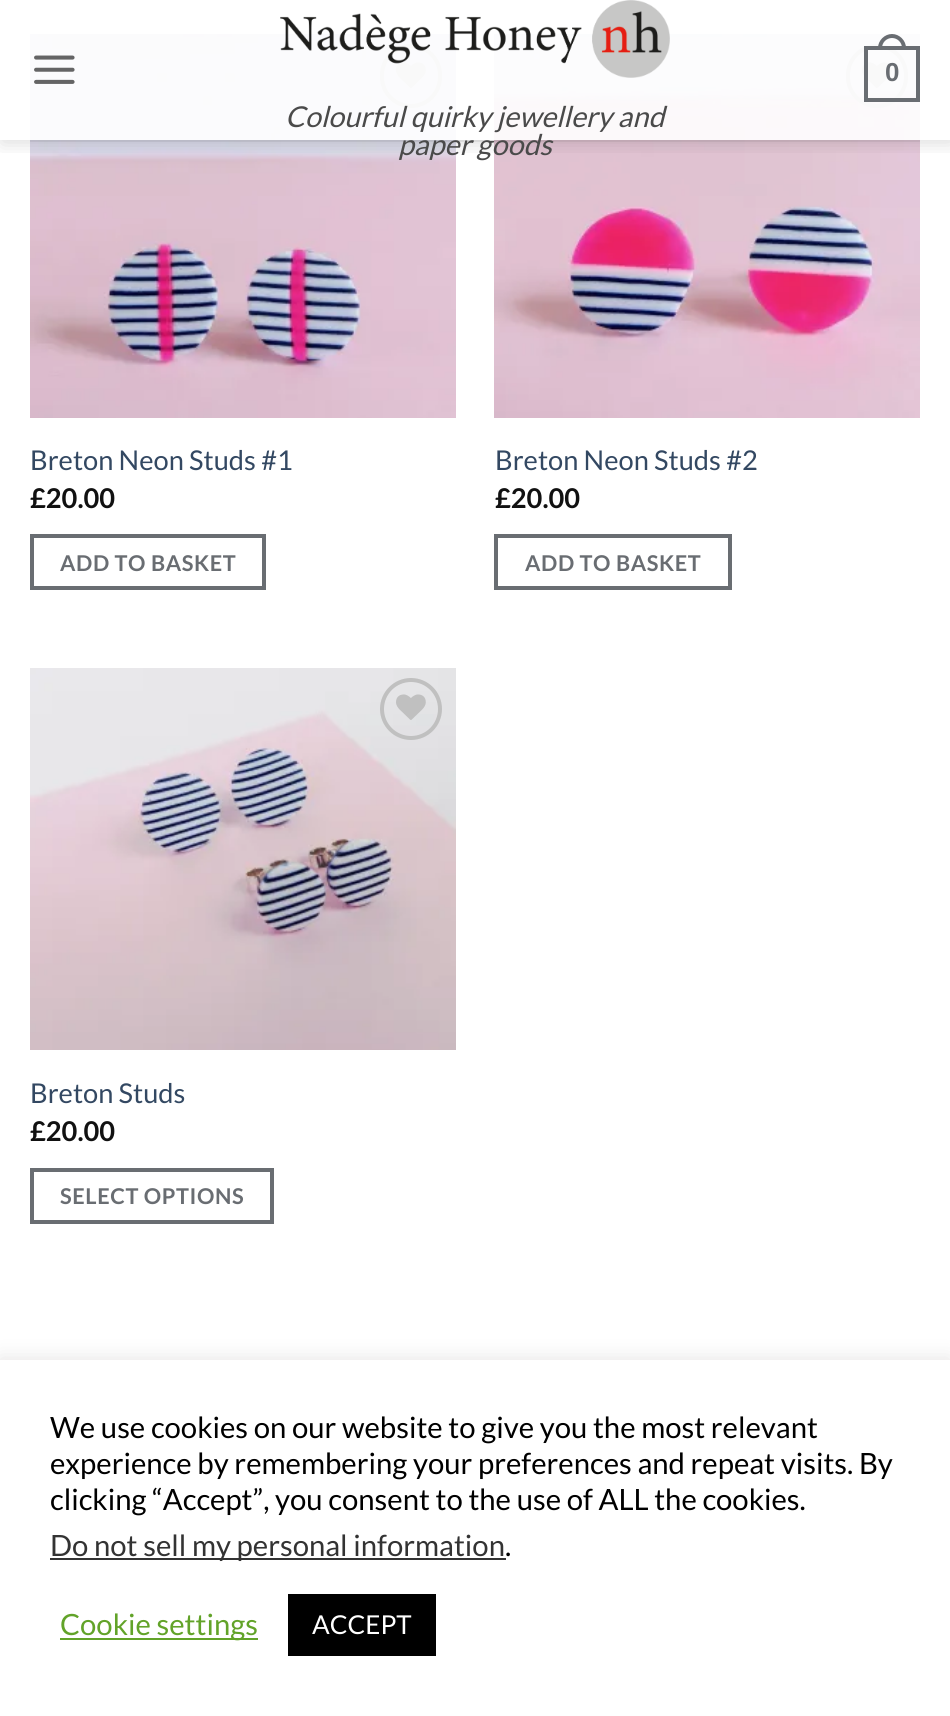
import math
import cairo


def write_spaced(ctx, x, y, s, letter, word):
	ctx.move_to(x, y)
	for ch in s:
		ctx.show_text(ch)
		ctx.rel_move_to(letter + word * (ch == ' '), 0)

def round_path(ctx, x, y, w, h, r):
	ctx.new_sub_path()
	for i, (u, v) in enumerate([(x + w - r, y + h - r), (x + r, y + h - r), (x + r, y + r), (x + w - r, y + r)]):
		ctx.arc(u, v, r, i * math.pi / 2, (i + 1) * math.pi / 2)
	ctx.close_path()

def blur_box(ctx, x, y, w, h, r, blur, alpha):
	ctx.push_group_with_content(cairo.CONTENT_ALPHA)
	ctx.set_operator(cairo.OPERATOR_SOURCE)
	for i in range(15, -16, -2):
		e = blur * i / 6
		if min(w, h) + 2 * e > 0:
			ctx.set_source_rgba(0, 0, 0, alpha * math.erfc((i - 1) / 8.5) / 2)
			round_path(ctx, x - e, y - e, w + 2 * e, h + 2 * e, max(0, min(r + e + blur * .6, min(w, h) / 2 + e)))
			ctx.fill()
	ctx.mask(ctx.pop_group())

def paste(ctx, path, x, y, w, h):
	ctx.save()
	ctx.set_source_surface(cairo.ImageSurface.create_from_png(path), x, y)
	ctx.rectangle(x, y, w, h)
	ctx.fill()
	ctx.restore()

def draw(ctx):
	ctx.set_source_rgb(1, 1, 1)
	ctx.paint()
	paste(ctx, 'media/3.png', 30, 34, 426, 384)
	round_path(ctx, 382, 46, 58, 60, 29)
	ctx.set_source_rgb(0.753, 0.753, 0.753)
	ctx.set_line_width(4)
	ctx.stroke()
	paste(ctx, 'media/4.png', 396, 62, 30, 26)
	paste(ctx, 'media/5.png', 494, 34, 426, 384)
	round_path(ctx, 848, 46, 58, 60, 29)
	ctx.stroke()
	paste(ctx, 'media/6.png', 862, 62, 30, 26)
	ctx.save()
	ctx.rectangle(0, 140, 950, 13)
	ctx.clip()
	ctx.set_source_rgb(0, 0, 0)
	blur_box(ctx, 2, 2, 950, 140, 0, 10, 0.15)
	ctx.restore()
	ctx.set_source_rgba(1, 1, 1, 0.9)
	ctx.rectangle(30, 34, 890, 106)
	ctx.fill()
	paste(ctx, 'media/1.png', 34, 55, 41, 29)
	ctx.rectangle(866, 48, 52, 52)
	ctx.set_source_rgb(0.412, 0.427, 0.447)
	ctx.stroke()
	ctx.set_fill_rule(cairo.FILL_RULE_EVEN_ODD)
	ctx.new_path()
	ctx.move_to(892, 34)
	ctx.curve_to(899.5, 34, 906, 40.5, 906, 48)
	ctx.line_to(906, 50)
	ctx.line_to(878, 50)
	ctx.line_to(878, 48)
	ctx.curve_to(878, 40.5, 884.5, 34, 892, 34)
	ctx.close_path()
	ctx.move_to(892, 38)
	ctx.curve_to(897.5, 38, 902, 42.5, 902, 48)
	ctx.line_to(902, 50)
	ctx.line_to(882, 50)
	ctx.line_to(882, 48)
	ctx.curve_to(882, 42.5, 886.5, 38, 892, 38)
	ctx.close_path()
	ctx.fill()
	ctx.select_font_face('Liberation Sans', cairo.FONT_SLANT_NORMAL, cairo.FONT_WEIGHT_BOLD)
	ctx.set_font_size(26)
	ctx.move_to(885, 81)
	ctx.show_text('0')
	paste(ctx, 'media/2.png', 280, 0, 390, 78)
	ctx.select_font_face('Lato', cairo.FONT_SLANT_ITALIC)
	ctx.set_font_size(28.75)
	ctx.set_source_rgb(0.29, 0.29, 0.29)
	ctx.move_to(285, 127)
	ctx.show_text('Colourful quirky jewellery and')
	ctx.move_to(398, 155)
	ctx.show_text('paper goods')
	ctx.set_source_rgba(0.29, 0.29, 0.29, 0.1)
	ctx.rectangle(30, 140, 890, 2)
	ctx.fill()
	ctx.select_font_face('Lato')
	ctx.set_font_size(27.25)
	ctx.set_source_rgb(0.2, 0.282, 0.384)
	ctx.move_to(30, 470)
	ctx.show_text('Breton Neon Studs #1')
	ctx.select_font_face('Lato', cairo.FONT_SLANT_NORMAL, cairo.FONT_WEIGHT_BOLD)
	ctx.set_source_rgb(0.067, 0.067, 0.067)
	ctx.move_to(30, 508)
	ctx.show_text('£20.00')
	ctx.rectangle(32, 536, 232, 52)
	ctx.set_source_rgb(0.412, 0.427, 0.447)
	ctx.stroke()
	ctx.set_font_size(21.75)
	write_spaced(ctx, 60, 571, 'ADD TO BASKET', 0.6, 0)
	ctx.select_font_face('Lato')
	ctx.set_font_size(27.25)
	ctx.set_source_rgb(0.2, 0.282, 0.384)
	ctx.move_to(495, 470)
	ctx.show_text('Breton Neon Studs #2')
	ctx.select_font_face('Lato', cairo.FONT_SLANT_NORMAL, cairo.FONT_WEIGHT_BOLD)
	ctx.set_source_rgb(0.067, 0.067, 0.067)
	ctx.move_to(495, 508)
	ctx.show_text('£20.00')
	ctx.rectangle(496, 536, 234, 52)
	ctx.set_source_rgb(0.412, 0.427, 0.447)
	ctx.stroke()
	ctx.set_font_size(21.75)
	write_spaced(ctx, 525, 571, 'ADD TO BASKET', 0.6, 0)
	paste(ctx, 'media/7.png', 30, 668, 426, 382)
	ctx.arc(411, 709, 29, 0, 2 * math.pi)
	ctx.set_source_rgb(0.753, 0.753, 0.753)
	ctx.stroke()
	paste(ctx, 'media/8.png', 396, 694, 30, 26)
	ctx.select_font_face('Lato')
	ctx.set_font_size(27.25)
	ctx.set_source_rgb(0.2, 0.282, 0.384)
	ctx.move_to(30, 1103)
	ctx.show_text('Breton Studs')
	ctx.select_font_face('Lato', cairo.FONT_SLANT_NORMAL, cairo.FONT_WEIGHT_BOLD)
	ctx.set_source_rgb(0.067, 0.067, 0.067)
	ctx.move_to(30, 1141)
	ctx.show_text('£20.00')
	ctx.rectangle(32, 1170, 240, 52)
	ctx.set_source_rgb(0.412, 0.427, 0.447)
	ctx.stroke()
	ctx.set_font_size(21.75)
	write_spaced(ctx, 60, 1204, 'SELECT OPTIONS', 0.6, 0)
	ctx.set_source_rgb(0.675, 0.671, 0.671)
	blur_box(ctx, 0, 1358, 950, 356, 0, 10, 0.3)
	ctx.set_source_rgb(1, 1, 1)
	ctx.rectangle(0, 1360, 950, 356)
	ctx.fill()
	ctx.select_font_face('Lato')
	ctx.set_font_size(29.3)
	ctx.set_source_rgb(0, 0, 0)
	for x, y, s in [
		(50, 1438, 'We use cookies on our website to give you the most relevant'),
		(50, 1474, 'experience by remembering your preferences and repeat visits. By'),
		(50, 1510, 'clicking “Accept”, you consent to the use of ALL the cookies.'),
	]:
		ctx.move_to(x, y)
		ctx.show_text(s)
	ctx.set_source_rgb(0.2, 0.2, 0.2)
	ctx.rectangle(50, 1558, 456, 2)
	ctx.fill()
	ctx.move_to(50, 1556)
	ctx.show_text('Do not sell my personal information')
	ctx.set_source_rgb(0, 0, 0)
	ctx.move_to(505, 1556)
	ctx.show_text('.')
	ctx.set_source_rgb(0.384, 0.639, 0.161)
	ctx.rectangle(60, 1638, 198, 2)
	ctx.fill()
	ctx.move_to(60, 1635)
	ctx.show_text('Cookie settings')
	ctx.set_source_rgb(0, 0, 0)
	ctx.rectangle(288, 1594, 148, 62)
	ctx.fill()
	ctx.set_font_size(26)
	ctx.set_source_rgb(1, 1, 1)
	ctx.move_to(312, 1634)
	ctx.show_text('ACCEPT')


surface = cairo.ImageSurface(cairo.FORMAT_RGB24, 950, 1716)
ctx = cairo.Context(surface)
options = cairo.FontOptions()
options.set_hint_metrics(cairo.HINT_METRICS_OFF)
options.set_hint_style(cairo.HINT_STYLE_NONE)
ctx.set_font_options(options)
ctx.set_miter_limit(4)
draw(ctx)
surface.write_to_png('image.png')
